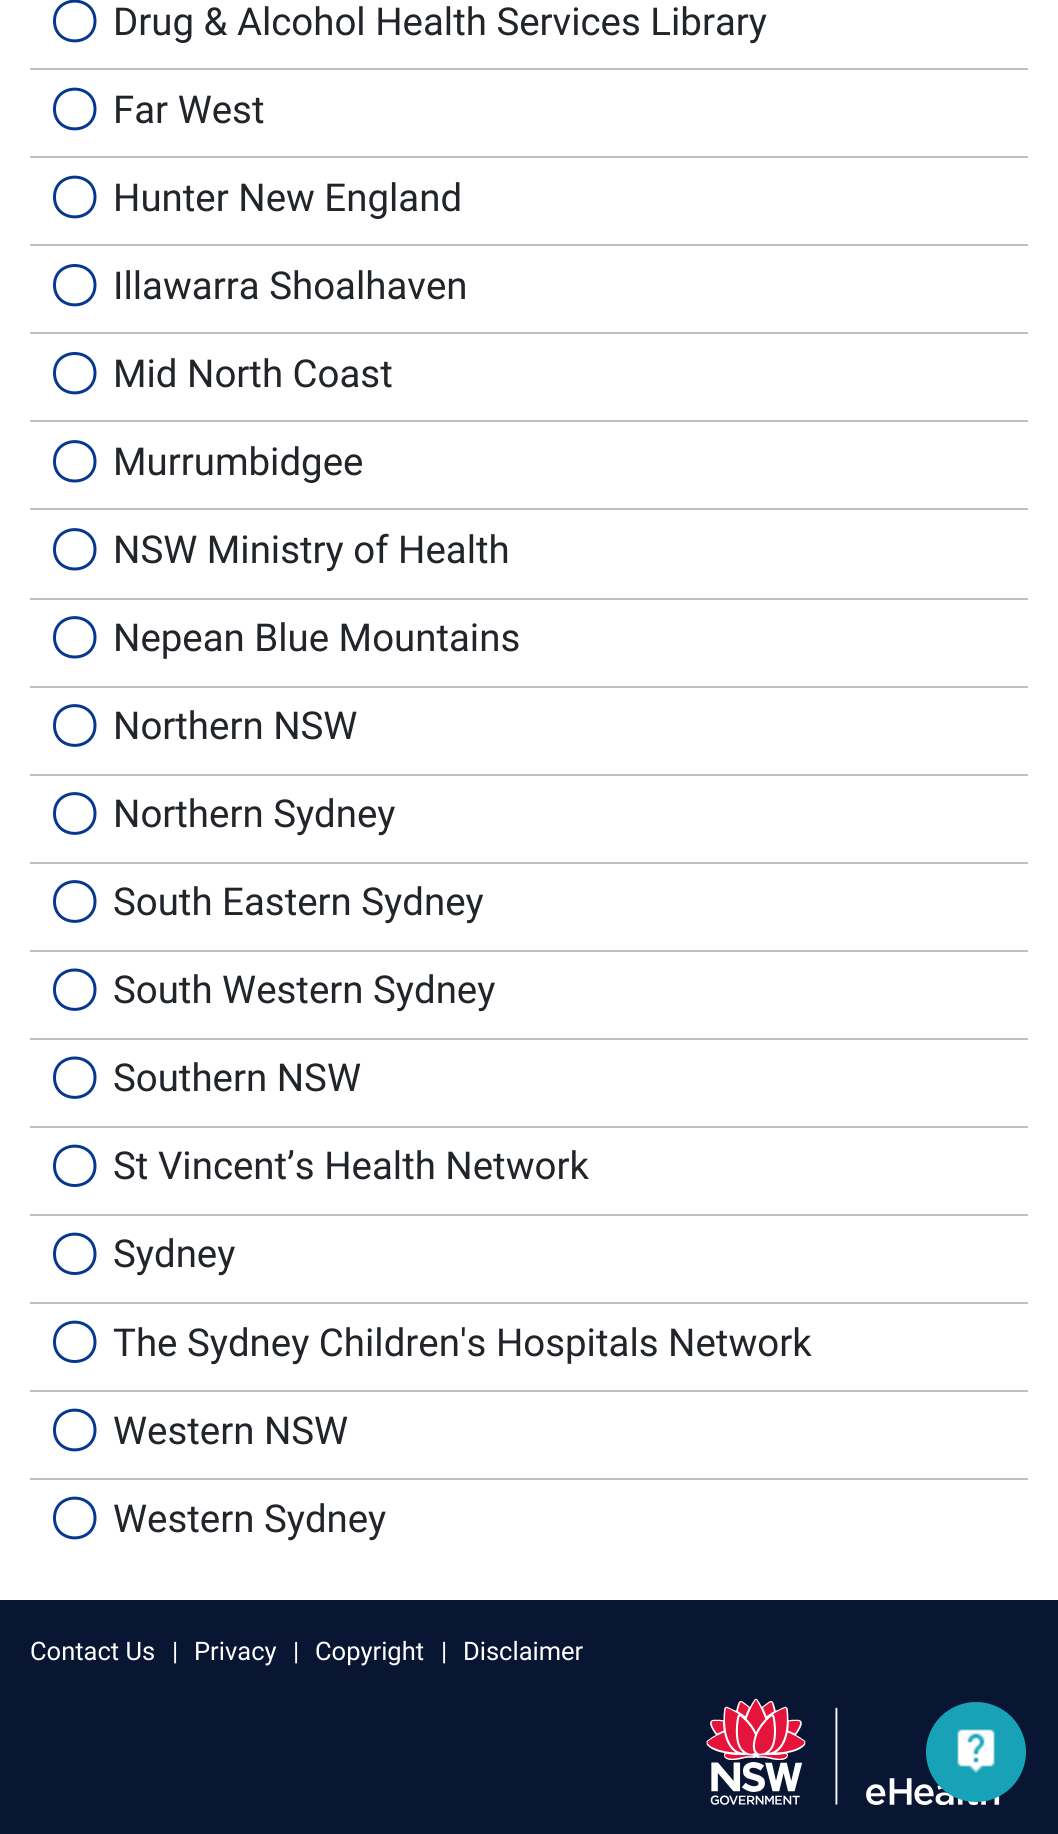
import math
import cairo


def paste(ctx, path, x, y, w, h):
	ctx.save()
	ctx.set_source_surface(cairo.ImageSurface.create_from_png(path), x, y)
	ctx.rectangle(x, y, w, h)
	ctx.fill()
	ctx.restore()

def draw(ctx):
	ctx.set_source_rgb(1, 1, 1)
	ctx.paint()
	ctx.new_path()
	ctx.move_to(95, 21)
	ctx.curve_to(95, 47.5, 54.5, 47.5, 54.5, 21)
	ctx.curve_to(54.5, -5.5, 95, -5.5, 95, 21)
	ctx.close_path()
	ctx.set_source_rgb(0.031, 0.22, 0.569)
	ctx.set_line_width(3)
	ctx.stroke()
	ctx.select_font_face('Roboto')
	ctx.set_font_size(38.4)
	ctx.set_source_rgb(0.129, 0.145, 0.161)
	ctx.move_to(113, 35)
	ctx.show_text('Drug & Alcohol Health Services Library')
	ctx.set_source_rgb(0.749, 0.749, 0.749)
	ctx.rectangle(30, 68, 998, 2)
	ctx.fill()
	ctx.new_path()
	ctx.move_to(95, 109)
	ctx.curve_to(95, 135.5, 54.5, 135.5, 54.5, 109)
	ctx.curve_to(54.5, 82.5, 95, 82.5, 95, 109)
	ctx.close_path()
	ctx.set_source_rgb(0.031, 0.22, 0.569)
	ctx.stroke()
	ctx.set_source_rgb(0.129, 0.145, 0.161)
	ctx.move_to(113, 123)
	ctx.show_text('Far West')
	ctx.set_source_rgb(0.749, 0.749, 0.749)
	ctx.rectangle(30, 156, 998, 2)
	ctx.fill()
	ctx.new_path()
	ctx.move_to(95, 197)
	ctx.curve_to(95, 223.5, 54.5, 223.5, 54.5, 197)
	ctx.curve_to(54.5, 170.5, 95, 170.5, 95, 197)
	ctx.close_path()
	ctx.set_source_rgb(0.031, 0.22, 0.569)
	ctx.stroke()
	ctx.set_source_rgb(0.129, 0.145, 0.161)
	ctx.move_to(113, 211)
	ctx.show_text('Hunter New England')
	ctx.set_source_rgb(0.749, 0.749, 0.749)
	ctx.rectangle(30, 244, 998, 2)
	ctx.fill()
	ctx.new_path()
	ctx.move_to(95, 285)
	ctx.curve_to(95, 311.5, 54.5, 311.5, 54.5, 285)
	ctx.curve_to(54.5, 259, 95, 259, 95, 285)
	ctx.close_path()
	ctx.set_source_rgb(0.031, 0.22, 0.569)
	ctx.stroke()
	ctx.set_source_rgb(0.129, 0.145, 0.161)
	ctx.move_to(113, 299)
	ctx.show_text('Illawarra Shoalhaven')
	ctx.set_source_rgb(0.749, 0.749, 0.749)
	ctx.rectangle(30, 332, 998, 2)
	ctx.fill()
	ctx.new_path()
	ctx.move_to(95, 373)
	ctx.curve_to(95, 399.5, 54.5, 399.5, 54.5, 373)
	ctx.curve_to(54.5, 347, 95, 347, 95, 373)
	ctx.close_path()
	ctx.set_source_rgb(0.031, 0.22, 0.569)
	ctx.stroke()
	ctx.set_source_rgb(0.129, 0.145, 0.161)
	ctx.move_to(113, 387)
	ctx.show_text('Mid North Coast')
	ctx.set_source_rgb(0.749, 0.749, 0.749)
	ctx.rectangle(30, 420, 998, 2)
	ctx.fill()
	ctx.new_path()
	ctx.move_to(95, 461.5)
	ctx.curve_to(95, 487.5, 54.5, 487.5, 54.5, 461.5)
	ctx.curve_to(54.5, 435, 95, 435, 95, 461.5)
	ctx.close_path()
	ctx.set_source_rgb(0.031, 0.22, 0.569)
	ctx.stroke()
	ctx.set_source_rgb(0.129, 0.145, 0.161)
	ctx.move_to(113, 475)
	ctx.show_text('Murrumbidgee')
	ctx.set_source_rgb(0.749, 0.749, 0.749)
	ctx.rectangle(30, 508, 998, 2)
	ctx.fill()
	ctx.new_path()
	ctx.move_to(95, 549.5)
	ctx.curve_to(95, 575.5, 54.5, 575.5, 54.5, 549.5)
	ctx.curve_to(54.5, 523, 95, 523, 95, 549.5)
	ctx.close_path()
	ctx.set_source_rgb(0.031, 0.22, 0.569)
	ctx.stroke()
	ctx.set_source_rgb(0.129, 0.145, 0.161)
	ctx.move_to(113, 563)
	ctx.show_text('NSW Ministry of Health')
	ctx.set_source_rgb(0.749, 0.749, 0.749)
	ctx.rectangle(30, 598, 998, 2)
	ctx.fill()
	ctx.new_path()
	ctx.move_to(95, 637.5)
	ctx.curve_to(95, 663.5, 54.5, 663.5, 54.5, 637.5)
	ctx.curve_to(54.5, 611, 95, 611, 95, 637.5)
	ctx.close_path()
	ctx.set_source_rgb(0.031, 0.22, 0.569)
	ctx.stroke()
	ctx.set_source_rgb(0.129, 0.145, 0.161)
	ctx.move_to(113, 651)
	ctx.show_text('Nepean Blue Mountains')
	ctx.set_source_rgb(0.749, 0.749, 0.749)
	ctx.rectangle(30, 686, 998, 2)
	ctx.fill()
	ctx.new_path()
	ctx.move_to(95, 725.5)
	ctx.curve_to(95, 752, 54.5, 752, 54.5, 725.5)
	ctx.curve_to(54.5, 699, 95, 699, 95, 725.5)
	ctx.close_path()
	ctx.set_source_rgb(0.031, 0.22, 0.569)
	ctx.stroke()
	ctx.set_source_rgb(0.129, 0.145, 0.161)
	ctx.move_to(113, 739)
	ctx.show_text('Northern NSW')
	ctx.set_source_rgb(0.749, 0.749, 0.749)
	ctx.rectangle(30, 774, 998, 2)
	ctx.fill()
	ctx.new_path()
	ctx.move_to(95, 813.5)
	ctx.curve_to(95, 840, 54.5, 840, 54.5, 813.5)
	ctx.curve_to(54.5, 787, 95, 787, 95, 813.5)
	ctx.close_path()
	ctx.set_source_rgb(0.031, 0.22, 0.569)
	ctx.stroke()
	ctx.set_source_rgb(0.129, 0.145, 0.161)
	ctx.move_to(113, 827)
	ctx.show_text('Northern Sydney')
	ctx.set_source_rgb(0.749, 0.749, 0.749)
	ctx.rectangle(30, 862, 998, 2)
	ctx.fill()
	ctx.new_path()
	ctx.move_to(95, 901.5)
	ctx.curve_to(95, 928, 54.5, 928, 54.5, 901.5)
	ctx.curve_to(54.5, 875, 95, 875, 95, 901.5)
	ctx.close_path()
	ctx.set_source_rgb(0.031, 0.22, 0.569)
	ctx.stroke()
	ctx.set_source_rgb(0.129, 0.145, 0.161)
	ctx.move_to(113, 915)
	ctx.show_text('South Eastern Sydney')
	ctx.set_source_rgb(0.749, 0.749, 0.749)
	ctx.rectangle(30, 950, 998, 2)
	ctx.fill()
	ctx.new_path()
	ctx.move_to(95, 989.5)
	ctx.curve_to(95, 1016, 54.5, 1016, 54.5, 989.5)
	ctx.curve_to(54.5, 963.5, 95, 963.5, 95, 989.5)
	ctx.close_path()
	ctx.set_source_rgb(0.031, 0.22, 0.569)
	ctx.stroke()
	ctx.set_source_rgb(0.129, 0.145, 0.161)
	ctx.move_to(113, 1003)
	ctx.show_text('South Western Sydney')
	ctx.set_source_rgb(0.749, 0.749, 0.749)
	ctx.rectangle(30, 1038, 998, 2)
	ctx.fill()
	ctx.new_path()
	ctx.move_to(95, 1077.5)
	ctx.curve_to(95, 1104, 54.5, 1104, 54.5, 1077.5)
	ctx.curve_to(54.5, 1051.5, 95, 1051.5, 95, 1077.5)
	ctx.close_path()
	ctx.set_source_rgb(0.031, 0.22, 0.569)
	ctx.stroke()
	ctx.set_source_rgb(0.129, 0.145, 0.161)
	ctx.move_to(113, 1091)
	ctx.show_text('Southern NSW')
	ctx.set_source_rgb(0.749, 0.749, 0.749)
	ctx.rectangle(30, 1126, 998, 2)
	ctx.fill()
	ctx.new_path()
	ctx.move_to(95, 1166)
	ctx.curve_to(95, 1192, 54.5, 1192, 54.5, 1166)
	ctx.curve_to(54.5, 1139.5, 95, 1139.5, 95, 1166)
	ctx.close_path()
	ctx.set_source_rgb(0.031, 0.22, 0.569)
	ctx.stroke()
	ctx.set_source_rgb(0.129, 0.145, 0.161)
	ctx.move_to(113, 1179)
	ctx.show_text('St Vincent’s Health Network')
	ctx.set_source_rgb(0.749, 0.749, 0.749)
	ctx.rectangle(30, 1214, 998, 2)
	ctx.fill()
	ctx.new_path()
	ctx.move_to(95, 1254)
	ctx.curve_to(95, 1280, 54.5, 1280, 54.5, 1254)
	ctx.curve_to(54.5, 1227.5, 95, 1227.5, 95, 1254)
	ctx.close_path()
	ctx.set_source_rgb(0.031, 0.22, 0.569)
	ctx.stroke()
	ctx.set_source_rgb(0.129, 0.145, 0.161)
	ctx.move_to(113, 1267)
	ctx.show_text('Sydney')
	ctx.set_source_rgb(0.749, 0.749, 0.749)
	ctx.rectangle(30, 1302, 998, 2)
	ctx.fill()
	ctx.new_path()
	ctx.move_to(95, 1342)
	ctx.curve_to(95, 1368, 54.5, 1368, 54.5, 1342)
	ctx.curve_to(54.5, 1315.5, 95, 1315.5, 95, 1342)
	ctx.close_path()
	ctx.set_source_rgb(0.031, 0.22, 0.569)
	ctx.stroke()
	ctx.set_source_rgb(0.129, 0.145, 0.161)
	ctx.move_to(113, 1356)
	ctx.show_text('The Sydney Children\'s Hospitals Network')
	ctx.set_source_rgb(0.749, 0.749, 0.749)
	ctx.rectangle(30, 1390, 998, 2)
	ctx.fill()
	ctx.new_path()
	ctx.move_to(95, 1430)
	ctx.curve_to(95, 1456.5, 54.5, 1456.5, 54.5, 1430)
	ctx.curve_to(54.5, 1403.5, 95, 1403.5, 95, 1430)
	ctx.close_path()
	ctx.set_source_rgb(0.031, 0.22, 0.569)
	ctx.stroke()
	ctx.set_source_rgb(0.129, 0.145, 0.161)
	ctx.move_to(113, 1444)
	ctx.show_text('Western NSW')
	ctx.set_source_rgb(0.749, 0.749, 0.749)
	ctx.rectangle(30, 1478, 998, 2)
	ctx.fill()
	ctx.new_path()
	ctx.move_to(95, 1518)
	ctx.curve_to(95, 1544.5, 54.5, 1544.5, 54.5, 1518)
	ctx.curve_to(54.5, 1491.5, 95, 1491.5, 95, 1518)
	ctx.close_path()
	ctx.set_source_rgb(0.031, 0.22, 0.569)
	ctx.stroke()
	ctx.set_source_rgb(0.129, 0.145, 0.161)
	ctx.move_to(113, 1532)
	ctx.show_text('Western Sydney')
	ctx.set_source_rgb(0.039, 0.086, 0.2)
	ctx.rectangle(0, 1600, 1058, 234)
	ctx.fill()
	ctx.set_font_size(25.5)
	ctx.set_source_rgb(1, 1, 1)
	for x, y, s in [
		(30, 1660, 'Contact Us'),
		(172, 1660, '|'),
		(194, 1660, 'Privacy'),
		(293, 1660, '|'),
		(315, 1660, 'Copyright'),
		(441, 1660, '|'),
		(463, 1660, 'Disclaimer'),
	]:
		ctx.move_to(x, y)
		ctx.show_text(s)
	paste(ctx, 'media/1.png', 706, 1698, 294, 107)
	ctx.set_source_rgb(0.09, 0.635, 0.722)
	ctx.arc(976, 1752, 49, 0, 2 * math.pi)
	ctx.fill_preserve()
	ctx.set_line_width(2)
	ctx.stroke()
	paste(ctx, 'media/2.png', 957, 1729, 38, 44)


surface = cairo.ImageSurface(cairo.FORMAT_RGB24, 1058, 1834)
ctx = cairo.Context(surface)
options = cairo.FontOptions()
options.set_hint_metrics(cairo.HINT_METRICS_OFF)
options.set_hint_style(cairo.HINT_STYLE_NONE)
ctx.set_font_options(options)
ctx.set_miter_limit(4)
draw(ctx)
surface.write_to_png('image.png')
